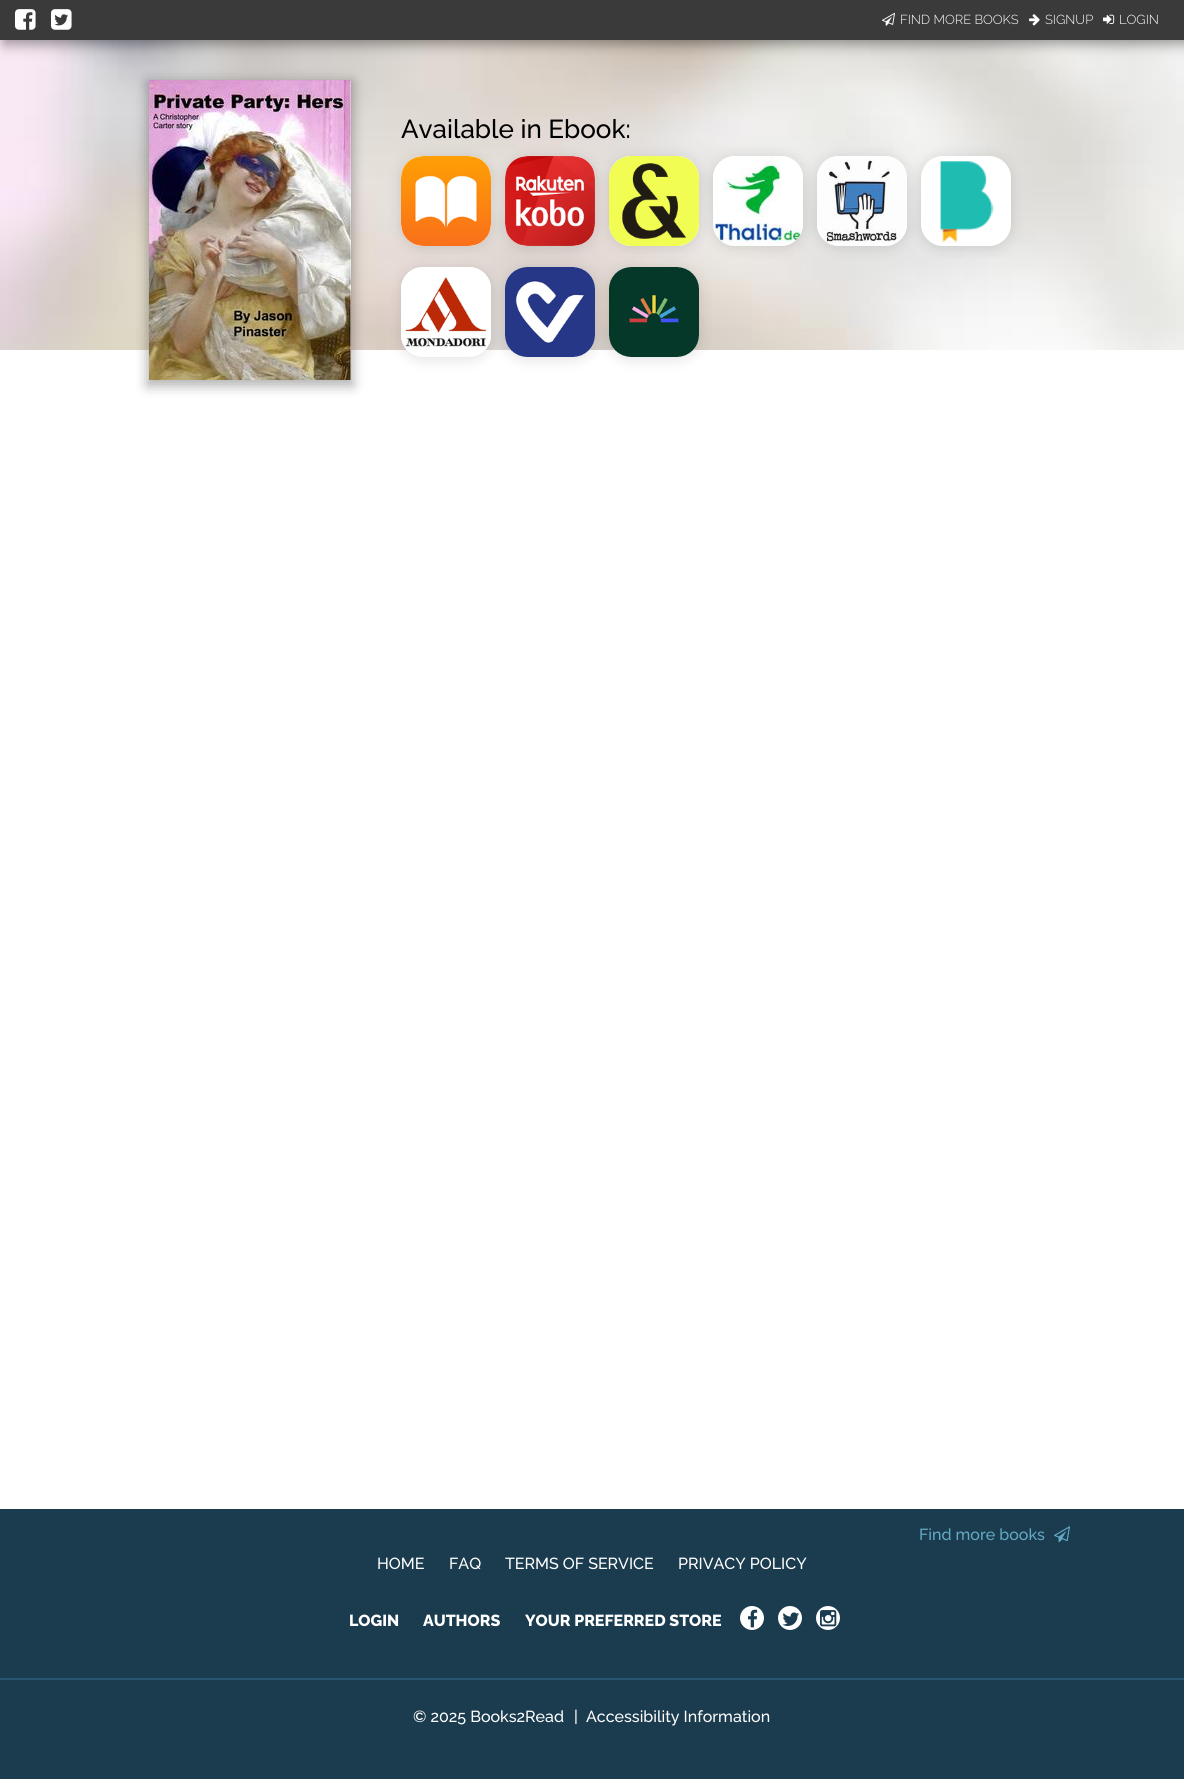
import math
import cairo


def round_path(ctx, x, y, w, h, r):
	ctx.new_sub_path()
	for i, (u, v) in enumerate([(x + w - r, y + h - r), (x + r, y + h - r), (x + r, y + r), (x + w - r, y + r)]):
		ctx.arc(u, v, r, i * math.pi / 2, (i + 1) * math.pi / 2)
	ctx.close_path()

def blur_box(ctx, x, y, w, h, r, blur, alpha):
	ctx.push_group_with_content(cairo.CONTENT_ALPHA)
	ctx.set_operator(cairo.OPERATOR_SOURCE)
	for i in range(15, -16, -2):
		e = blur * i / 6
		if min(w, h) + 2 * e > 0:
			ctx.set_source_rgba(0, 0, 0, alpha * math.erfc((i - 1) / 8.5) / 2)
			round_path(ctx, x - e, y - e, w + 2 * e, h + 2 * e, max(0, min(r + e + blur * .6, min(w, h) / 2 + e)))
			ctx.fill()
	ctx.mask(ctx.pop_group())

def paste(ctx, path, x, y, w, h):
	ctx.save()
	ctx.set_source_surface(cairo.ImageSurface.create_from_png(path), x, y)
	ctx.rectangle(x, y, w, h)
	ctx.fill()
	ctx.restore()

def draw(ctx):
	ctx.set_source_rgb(1, 1, 1)
	ctx.paint()
	paste(ctx, 'media/1.png', 0, 40, 1184, 310)
	ctx.set_source_rgb(0, 0, 0)
	blur_box(ctx, 4, 4, 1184, 40, 0, 7, 0.4)
	ctx.set_source_rgb(0.227, 0.227, 0.227)
	ctx.rectangle(0, 0, 1184, 40)
	ctx.fill()
	paste(ctx, 'media/2.png', 15, 9, 21, 21)
	paste(ctx, 'media/3.png', 51, 9, 21, 21)
	paste(ctx, 'media/4.png', 882, 12, 13, 14)
	ctx.select_font_face('Raleway Light')
	ctx.set_font_size(13)
	ctx.set_source_rgb(1, 1, 1)
	ctx.move_to(900, 24)
	ctx.show_text('FIND MORE BOOKS')
	paste(ctx, 'media/5.png', 1029, 14, 11, 12)
	ctx.move_to(1045, 24)
	ctx.show_text('SIGNUP')
	paste(ctx, 'media/6.png', 1103, 14, 12, 10)
	ctx.move_to(1119, 24)
	ctx.show_text('LOGIN')
	ctx.set_source_rgb(0, 0, 0)
	blur_box(ctx, 147, 82, 206, 304, 0, 6, 0.3)
	paste(ctx, 'media/7.png', 149, 80, 202, 300)
	blur_box(ctx, 399, 156, 94, 94, 24, 6, 0.1)
	ctx.set_source_rgb(1, 1, 1)
	round_path(ctx, 401, 156, 90, 90, 22)
	ctx.fill()
	paste(ctx, 'media/8.png', 401, 156, 90, 90)
	ctx.set_source_rgb(0, 0, 0)
	blur_box(ctx, 503, 156, 94, 94, 24, 6, 0.1)
	ctx.set_source_rgb(1, 1, 1)
	round_path(ctx, 505, 156, 90, 90, 22)
	ctx.fill()
	paste(ctx, 'media/9.png', 505, 156, 90, 90)
	ctx.set_source_rgb(0, 0, 0)
	blur_box(ctx, 607, 156, 94, 94, 24, 6, 0.1)
	ctx.select_font_face('Raleway Medium')
	ctx.set_font_size(26)
	ctx.set_source_rgb(0, 0, 0)
	ctx.move_to(401, 138)
	ctx.show_text('Available in Ebook:')
	ctx.set_source_rgb(1, 1, 1)
	round_path(ctx, 609, 156, 90, 90, 22)
	ctx.fill()
	paste(ctx, 'media/10.png', 609, 156, 90, 90)
	ctx.set_source_rgb(0, 0, 0)
	blur_box(ctx, 711, 156, 94, 94, 24, 6, 0.1)
	ctx.set_source_rgb(1, 1, 1)
	round_path(ctx, 713, 156, 90, 90, 22)
	ctx.fill()
	paste(ctx, 'media/11.png', 713, 156, 90, 90)
	ctx.set_source_rgb(0, 0, 0)
	blur_box(ctx, 815, 156, 94, 94, 24, 6, 0.1)
	ctx.set_source_rgb(1, 1, 1)
	round_path(ctx, 817, 156, 90, 90, 22)
	ctx.fill()
	paste(ctx, 'media/12.png', 817, 156, 90, 90)
	ctx.set_source_rgb(0, 0, 0)
	blur_box(ctx, 919, 156, 94, 94, 24, 6, 0.1)
	ctx.set_source_rgb(1, 1, 1)
	round_path(ctx, 921, 156, 90, 90, 22)
	ctx.fill()
	paste(ctx, 'media/13.png', 940, 161, 54, 82)
	ctx.set_source_rgb(0, 0, 0)
	blur_box(ctx, 399, 267, 94, 94, 24, 6, 0.1)
	ctx.set_source_rgb(1, 1, 1)
	round_path(ctx, 401, 267, 90, 90, 22)
	ctx.fill()
	paste(ctx, 'media/14.png', 401, 267, 90, 83)
	ctx.set_source_rgb(0, 0, 0)
	blur_box(ctx, 503, 267, 94, 94, 24, 6, 0.1)
	ctx.set_source_rgb(1, 1, 1)
	round_path(ctx, 505, 267, 90, 90, 22)
	ctx.fill()
	paste(ctx, 'media/15.png', 505, 267, 90, 90)
	ctx.set_source_rgb(0, 0, 0)
	blur_box(ctx, 607, 267, 94, 94, 24, 6, 0.1)
	ctx.set_source_rgb(1, 1, 1)
	round_path(ctx, 609, 267, 90, 90, 22)
	ctx.fill()
	paste(ctx, 'media/16.png', 609, 267, 90, 90)
	ctx.set_source_rgb(0.106, 0.231, 0.31)
	ctx.rectangle(0, 1509, 1184, 270)
	ctx.fill()
	ctx.set_font_size(16)
	ctx.set_source_rgb(0.388, 0.667, 0.773)
	ctx.move_to(919, 1540)
	ctx.show_text('Find more books')
	paste(ctx, 'media/17.png', 1054, 1526, 16, 17)
	ctx.set_source_rgb(1, 1, 1)
	for x, y, s in [
		(377, 1569, 'HOME'),
		(449, 1569, 'FAQ'),
		(505, 1569, 'TERMS OF SERVICE'),
		(678, 1569, 'PRIVACY POLICY'),
	]:
		ctx.move_to(x, y)
		ctx.show_text(s)
	ctx.select_font_face('Raleway ExtraBold')
	for x, y, s in [
		(349, 1626, 'LOGIN'),
		(423, 1626, 'AUTHORS'),
		(525, 1626, 'YOUR PREFERRED STORE'),
	]:
		ctx.move_to(x, y)
		ctx.show_text(s)
	ctx.new_path()
	ctx.arc(752, 1618, 12, 0, 2 * math.pi)
	ctx.fill()
	paste(ctx, 'media/18.png', 748, 1609, 10, 19)
	ctx.arc(790, 1618, 12, 0, 2 * math.pi)
	ctx.fill()
	paste(ctx, 'media/19.png', 782, 1612, 17, 14)
	ctx.arc(828, 1618, 12, 0, 2 * math.pi)
	ctx.fill()
	paste(ctx, 'media/20.png', 820, 1610, 17, 17)
	ctx.set_source_rgb(0.157, 0.341, 0.459)
	ctx.rectangle(0, 1678, 1184, 2)
	ctx.fill()
	ctx.select_font_face('Raleway Medium')
	ctx.set_source_rgb(1, 1, 1)
	for x, y, s in [
		(413, 1722, '© 2025 Books2Read'),
		(574, 1722, '|'),
		(586, 1722, 'Accessibility Information'),
	]:
		ctx.move_to(x, y)
		ctx.show_text(s)


surface = cairo.ImageSurface(cairo.FORMAT_RGB24, 1184, 1779)
ctx = cairo.Context(surface)
options = cairo.FontOptions()
options.set_hint_metrics(cairo.HINT_METRICS_OFF)
options.set_hint_style(cairo.HINT_STYLE_NONE)
ctx.set_font_options(options)
ctx.set_miter_limit(4)
draw(ctx)
surface.write_to_png('image.png')
